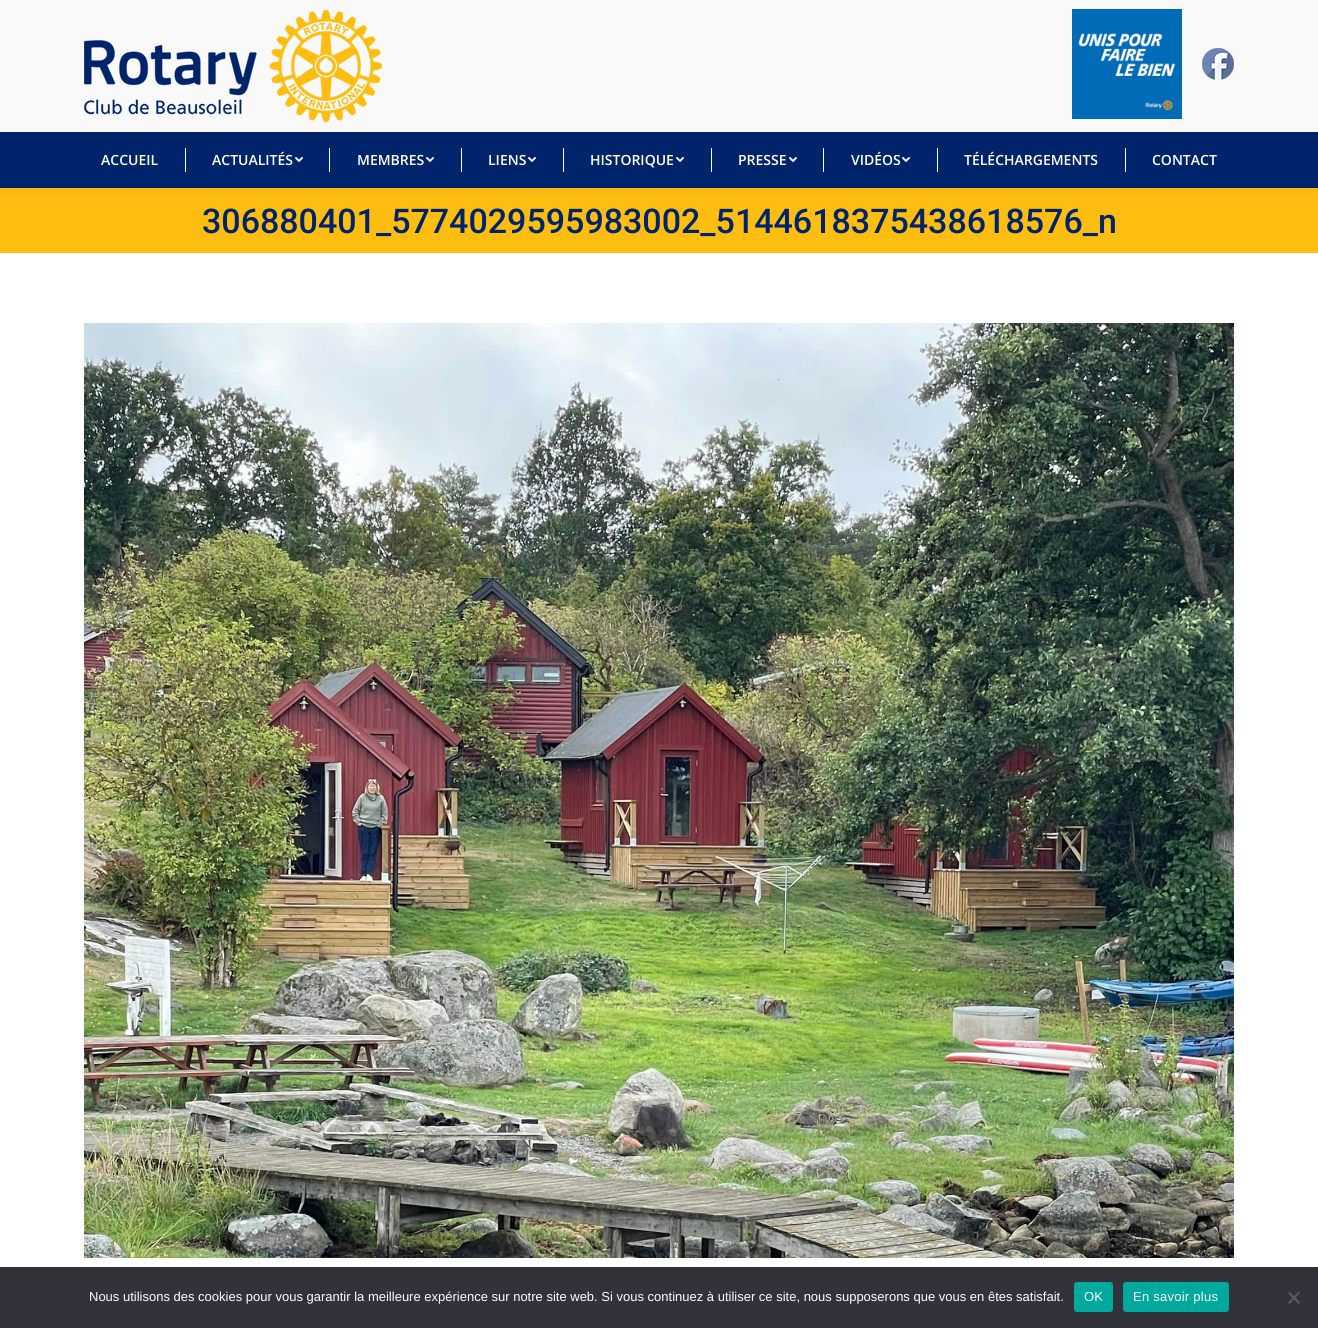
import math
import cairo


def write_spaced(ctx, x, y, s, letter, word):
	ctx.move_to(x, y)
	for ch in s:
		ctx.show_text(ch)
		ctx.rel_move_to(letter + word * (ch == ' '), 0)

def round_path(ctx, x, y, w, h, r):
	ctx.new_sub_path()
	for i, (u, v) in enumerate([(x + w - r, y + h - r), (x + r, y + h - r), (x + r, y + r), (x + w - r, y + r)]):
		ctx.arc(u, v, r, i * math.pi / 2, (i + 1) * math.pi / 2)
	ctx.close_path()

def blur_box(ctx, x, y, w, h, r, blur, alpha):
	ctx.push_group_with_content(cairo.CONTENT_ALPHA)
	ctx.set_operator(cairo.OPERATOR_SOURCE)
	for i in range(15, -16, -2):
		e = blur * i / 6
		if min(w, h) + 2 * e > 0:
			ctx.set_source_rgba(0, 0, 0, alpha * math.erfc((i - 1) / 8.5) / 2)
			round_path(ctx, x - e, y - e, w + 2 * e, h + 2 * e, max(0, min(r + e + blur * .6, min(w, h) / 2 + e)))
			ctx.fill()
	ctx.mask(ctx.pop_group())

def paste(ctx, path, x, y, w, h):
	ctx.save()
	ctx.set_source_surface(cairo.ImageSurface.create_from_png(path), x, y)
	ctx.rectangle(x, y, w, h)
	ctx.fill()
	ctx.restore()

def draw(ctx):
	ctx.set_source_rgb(1, 1, 1)
	ctx.paint()
	ctx.set_source_rgb(0.996, 0.741, 0.067)
	ctx.rectangle(0, 188, 1318, 65)
	ctx.fill()
	ctx.set_source_rgb(0, 0, 0)
	blur_box(ctx, -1, -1, 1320, 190, 0, 7.5, 0.07)
	ctx.set_source_rgb(0.973, 0.973, 0.976)
	ctx.rectangle(0, 0, 1318, 132)
	ctx.fill()
	paste(ctx, 'media/1.png', 84, 10, 298, 112)
	paste(ctx, 'media/2.png', 1072, 9, 110, 110)
	paste(ctx, 'media/3.png', 1202, 48, 32, 32)
	ctx.set_source_rgb(0, 0.141, 0.424)
	ctx.rectangle(0, 132, 1318, 56)
	ctx.fill()
	ctx.select_font_face('Open Sans SemiBold')
	ctx.set_font_size(14)
	ctx.set_source_rgb(1, 1, 1)
	ctx.move_to(101, 165)
	ctx.show_text('ACCUEIL')
	ctx.rectangle(185, 148, 1, 24)
	ctx.fill()
	ctx.move_to(212, 165)
	ctx.show_text('ACTUALITÉS')
	paste(ctx, 'media/4.png', 295, 157, 8, 5)
	ctx.rectangle(329, 148, 1, 24)
	ctx.fill()
	ctx.move_to(357, 165)
	ctx.show_text('MEMBRES')
	paste(ctx, 'media/4.png', 426, 157, 8, 5)
	ctx.rectangle(461, 148, 1, 24)
	ctx.fill()
	ctx.move_to(488, 165)
	ctx.show_text('LIENS')
	paste(ctx, 'media/4.png', 528, 157, 8, 5)
	ctx.rectangle(563, 148, 1, 24)
	ctx.fill()
	ctx.move_to(590, 165)
	ctx.show_text('HISTORIQUE')
	paste(ctx, 'media/4.png', 676, 157, 8, 5)
	ctx.rectangle(711, 148, 1, 24)
	ctx.fill()
	ctx.move_to(738, 165)
	ctx.show_text('PRESSE')
	paste(ctx, 'media/4.png', 789, 157, 8, 5)
	ctx.rectangle(823, 148, 1, 24)
	ctx.fill()
	ctx.move_to(851, 165)
	ctx.show_text('VIDÉOS')
	paste(ctx, 'media/4.png', 902, 157, 8, 5)
	ctx.rectangle(937, 148, 1, 24)
	ctx.fill()
	ctx.move_to(964, 165)
	ctx.show_text('TÉLÉCHARGEMENTS')
	ctx.rectangle(1125, 148, 1, 24)
	ctx.fill()
	ctx.move_to(1152, 165)
	ctx.show_text('CONTACT')
	ctx.select_font_face('Roboto Medium')
	ctx.set_font_size(34)
	ctx.set_source_rgb(0, 0.141, 0.424)
	ctx.move_to(202, 233)
	ctx.show_text('306880401_5774029595983002_5144618375438618576_n')
	paste(ctx, 'media/5.png', 84, 323, 1150, 935)
	ctx.set_source_rgb(0.196, 0.196, 0.227)
	ctx.rectangle(0, 1267, 1318, 61)
	ctx.fill()
	ctx.select_font_face('Liberation Sans')
	ctx.set_font_size(13)
	ctx.set_source_rgb(1, 1, 1)
	ctx.move_to(89, 1301)
	ctx.show_text('Nous utilisons des cookies pour vous garantir la meilleure expérience sur notre site web. Si vous continuez à utiliser ce site, nous supposerons que vous en êtes satisfait.')
	ctx.set_source_rgb(0, 0.663, 0.616)
	round_path(ctx, 1074, 1282, 39, 30, 3)
	ctx.fill()
	ctx.set_source_rgb(1, 1, 1)
	write_spaced(ctx, 1084, 1301, 'OK', 0.25, 0)
	ctx.set_source_rgb(0, 0.663, 0.616)
	round_path(ctx, 1123, 1282, 106, 30, 3)
	ctx.fill()
	ctx.set_source_rgb(1, 1, 1)
	write_spaced(ctx, 1133, 1301, 'En savoir plus', 0.25, 0)
	ctx.set_source_rgb(0.349, 0.349, 0.365)
	ctx.new_path()
	ctx.move_to(1298.5, 1291.5)
	ctx.line_to(1300, 1293)
	ctx.line_to(1289.5, 1304)
	ctx.line_to(1288, 1302.5)
	ctx.close_path()
	ctx.fill()
	ctx.new_path()
	ctx.move_to(1288, 1293)
	ctx.line_to(1289.5, 1291.5)
	ctx.line_to(1300, 1302.5)
	ctx.line_to(1298.5, 1304)
	ctx.close_path()
	ctx.fill()


surface = cairo.ImageSurface(cairo.FORMAT_RGB24, 1318, 1328)
ctx = cairo.Context(surface)
options = cairo.FontOptions()
options.set_hint_metrics(cairo.HINT_METRICS_OFF)
options.set_hint_style(cairo.HINT_STYLE_NONE)
ctx.set_font_options(options)
ctx.set_miter_limit(4)
draw(ctx)
surface.write_to_png('image.png')
